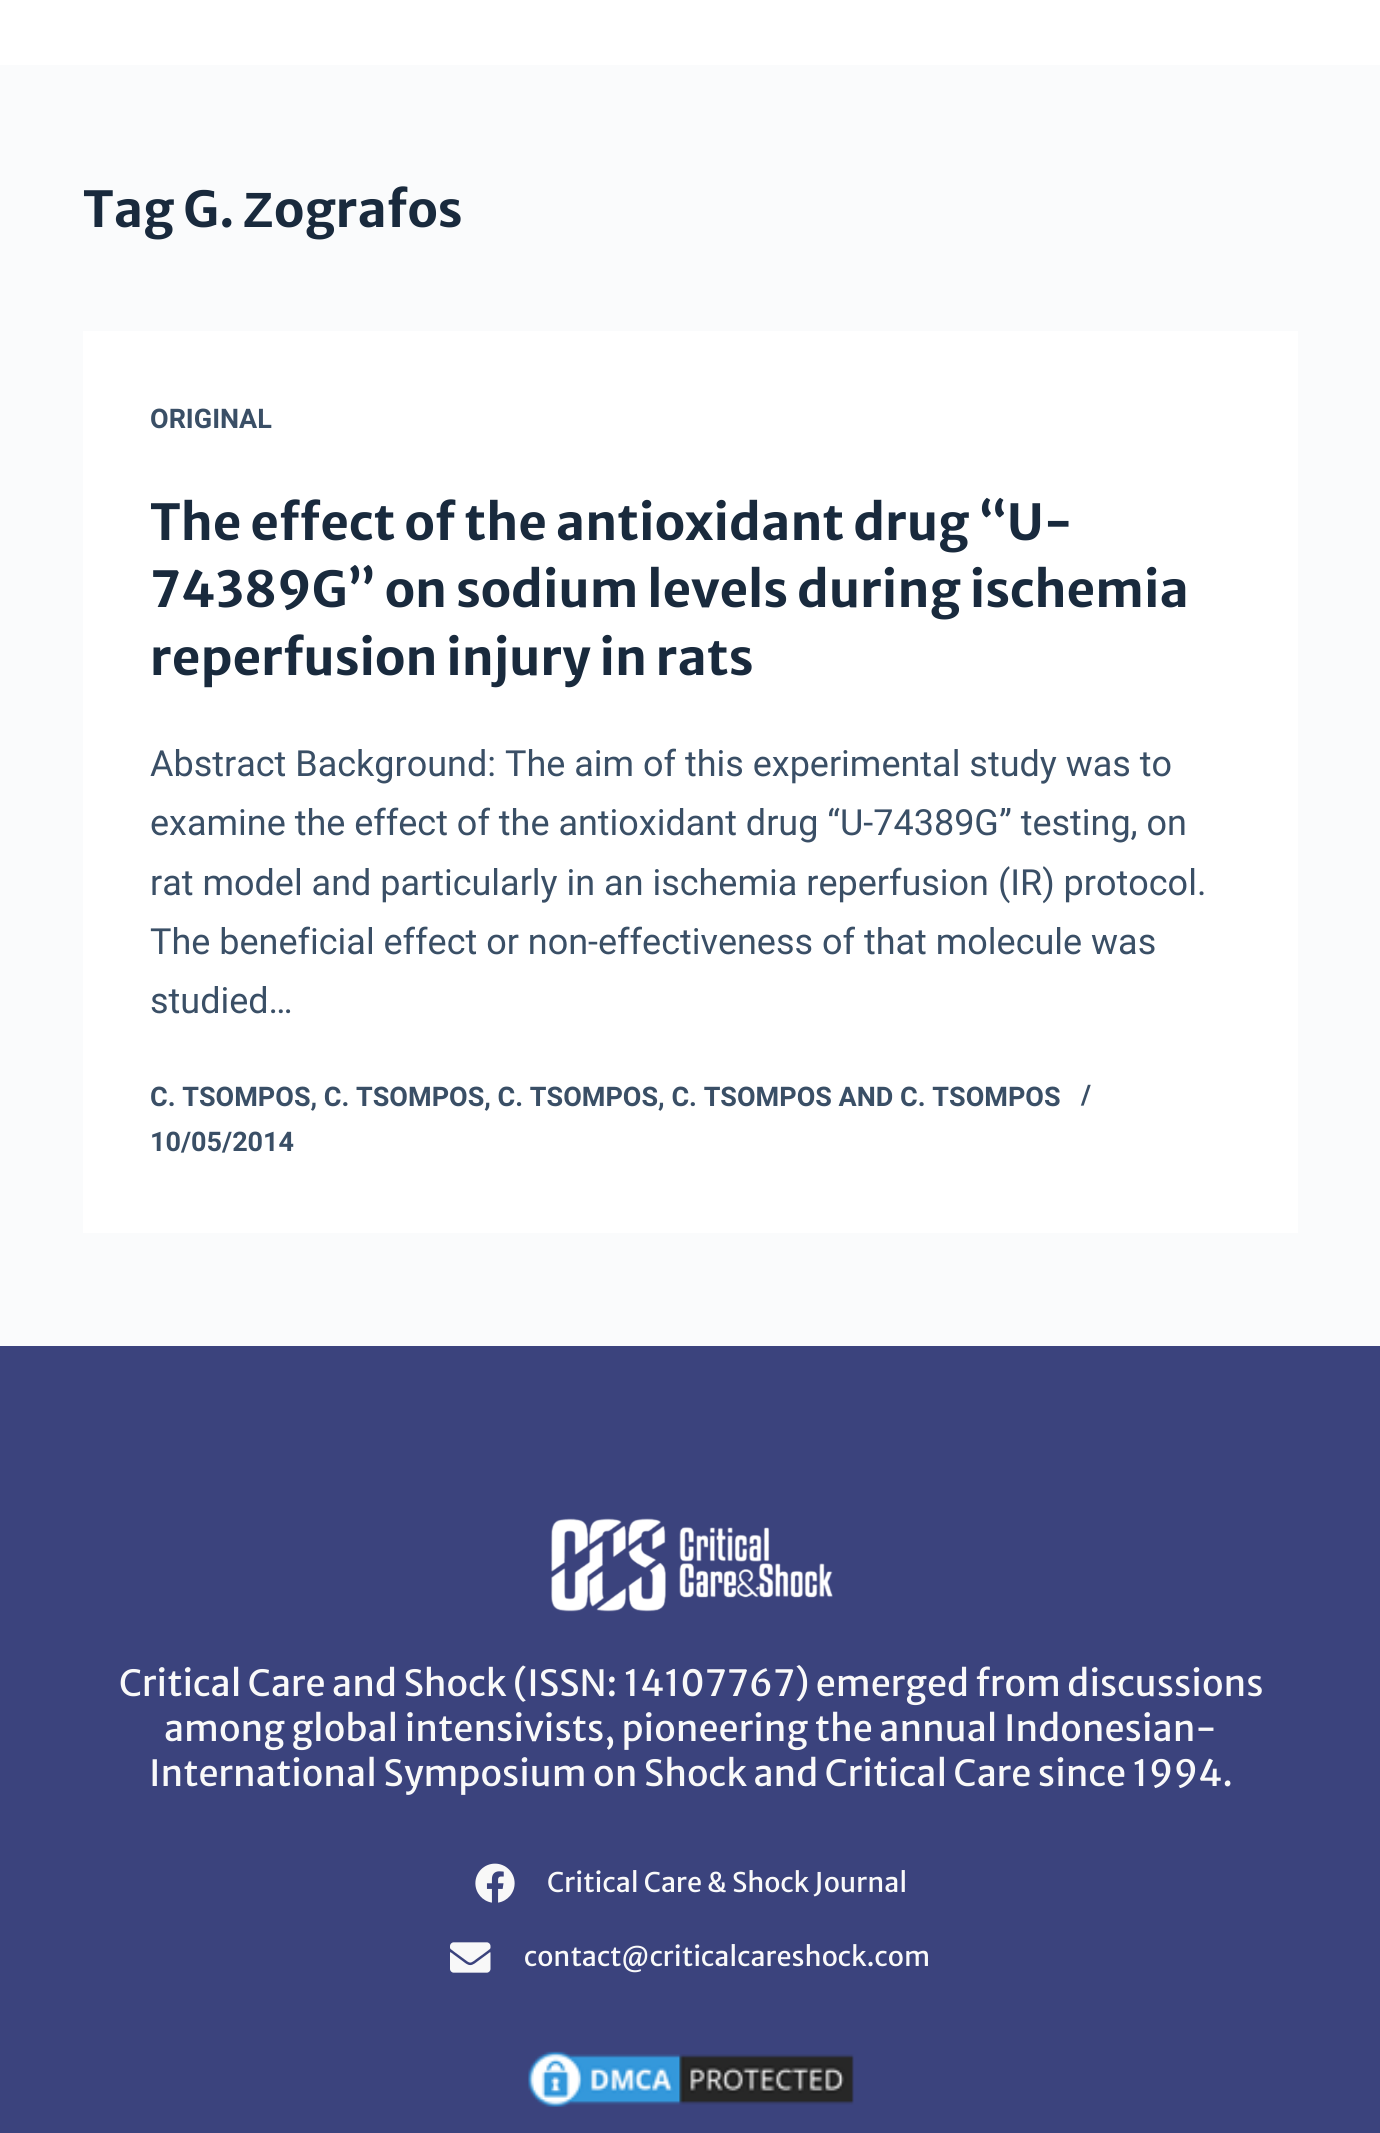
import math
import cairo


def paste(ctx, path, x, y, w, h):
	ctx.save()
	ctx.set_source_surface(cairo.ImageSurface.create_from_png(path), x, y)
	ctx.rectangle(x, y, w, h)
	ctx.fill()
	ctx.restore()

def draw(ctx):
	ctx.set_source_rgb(0.98, 0.984, 0.988)
	ctx.paint()
	ctx.set_source_rgb(1, 1, 1)
	ctx.rectangle(0, 0, 1380, 65)
	ctx.fill()
	ctx.select_font_face('Merriweather Sans', cairo.FONT_SLANT_NORMAL, cairo.FONT_WEIGHT_BOLD)
	ctx.set_font_size(49.5)
	ctx.set_source_rgb(0.098, 0.165, 0.239)
	ctx.move_to(83, 227)
	ctx.show_text('Tag G.')
	ctx.select_font_face('Liberation Sans', cairo.FONT_SLANT_NORMAL, cairo.FONT_WEIGHT_BOLD)
	ctx.move_to(243, 227)
	ctx.show_text('Ζ')
	ctx.select_font_face('Merriweather Sans', cairo.FONT_SLANT_NORMAL, cairo.FONT_WEIGHT_BOLD)
	ctx.move_to(274, 227)
	ctx.show_text('ografos')
	ctx.set_source_rgb(1, 1, 1)
	ctx.rectangle(83, 331, 1215, 902)
	ctx.fill()
	ctx.select_font_face('Roboto', cairo.FONT_SLANT_NORMAL, cairo.FONT_WEIGHT_BOLD)
	ctx.set_font_size(27)
	ctx.set_source_rgb(0.227, 0.31, 0.4)
	ctx.move_to(150, 428)
	ctx.show_text('ORIGINAL')
	ctx.select_font_face('Merriweather Sans', cairo.FONT_SLANT_NORMAL, cairo.FONT_WEIGHT_BOLD)
	ctx.set_font_size(49.5)
	ctx.set_source_rgb(0.098, 0.165, 0.239)
	for x, y, s in [
		(150, 540, 'The effect of the antioxidant drug “U-'),
		(150, 607, '74389G” on sodium levels during ischemia'),
		(150, 675, 'reperfusion injury in rats'),
	]:
		ctx.move_to(x, y)
		ctx.show_text(s)
	ctx.select_font_face('Roboto')
	ctx.set_font_size(36)
	ctx.set_source_rgb(0.227, 0.31, 0.4)
	for x, y, s in [
		(150, 776, 'Abstract Background: The aim of this experimental study was to'),
		(150, 835, 'examine the effect of the antioxidant drug “U-74389G” testing, on'),
		(150, 895, 'rat model and particularly in an ischemia reperfusion (IR) protocol.'),
		(150, 954, 'The beneficial effect or non-effectiveness of that molecule was'),
		(150, 1013, 'studied…'),
	]:
		ctx.move_to(x, y)
		ctx.show_text(s)
	ctx.select_font_face('Roboto', cairo.FONT_SLANT_NORMAL, cairo.FONT_WEIGHT_BOLD)
	ctx.set_font_size(27)
	for x, y, s in [
		(150, 1106, 'C. ΤSOMPOS, C. ΤSOMPOS, C. ΤSOMPOS, C. ΤSOMPOS AND C. ΤSOMPOS'),
		(1081, 1104, '/'),
		(150, 1151, '10/05/2014'),
	]:
		ctx.move_to(x, y)
		ctx.show_text(s)
	ctx.set_source_rgb(0.231, 0.263, 0.49)
	ctx.rectangle(0, 1346, 1380, 787)
	ctx.fill()
	paste(ctx, 'media/1.png', 551, 1518, 282, 94)
	ctx.select_font_face('Merriweather Sans')
	ctx.set_font_size(36)
	ctx.set_source_rgb(0.973, 0.973, 0.973)
	for x, y, s in [
		(119, 1696, 'Critical Care and Shock (ISSN: 14107767) emerged from discussions'),
		(164, 1741, 'among global intensivists, pioneering the annual Indonesian-'),
		(149, 1786, 'International Symposium on Shock and Critical Care since 1994.'),
	]:
		ctx.move_to(x, y)
		ctx.show_text(s)
	paste(ctx, 'media/2.png', 475, 1863, 40, 40)
	ctx.set_font_size(27)
	ctx.move_to(547, 1892)
	ctx.show_text('Critical Care & Shock Journal')
	paste(ctx, 'media/3.png', 450, 1942, 41, 31)
	ctx.move_to(524, 1966)
	ctx.show_text('contact@criticalcareshock.com')
	paste(ctx, 'media/4.png', 528, 2051, 326, 56)


surface = cairo.ImageSurface(cairo.FORMAT_RGB24, 1380, 2133)
ctx = cairo.Context(surface)
options = cairo.FontOptions()
options.set_hint_metrics(cairo.HINT_METRICS_OFF)
options.set_hint_style(cairo.HINT_STYLE_NONE)
ctx.set_font_options(options)
ctx.set_miter_limit(4)
draw(ctx)
surface.write_to_png('image.png')
